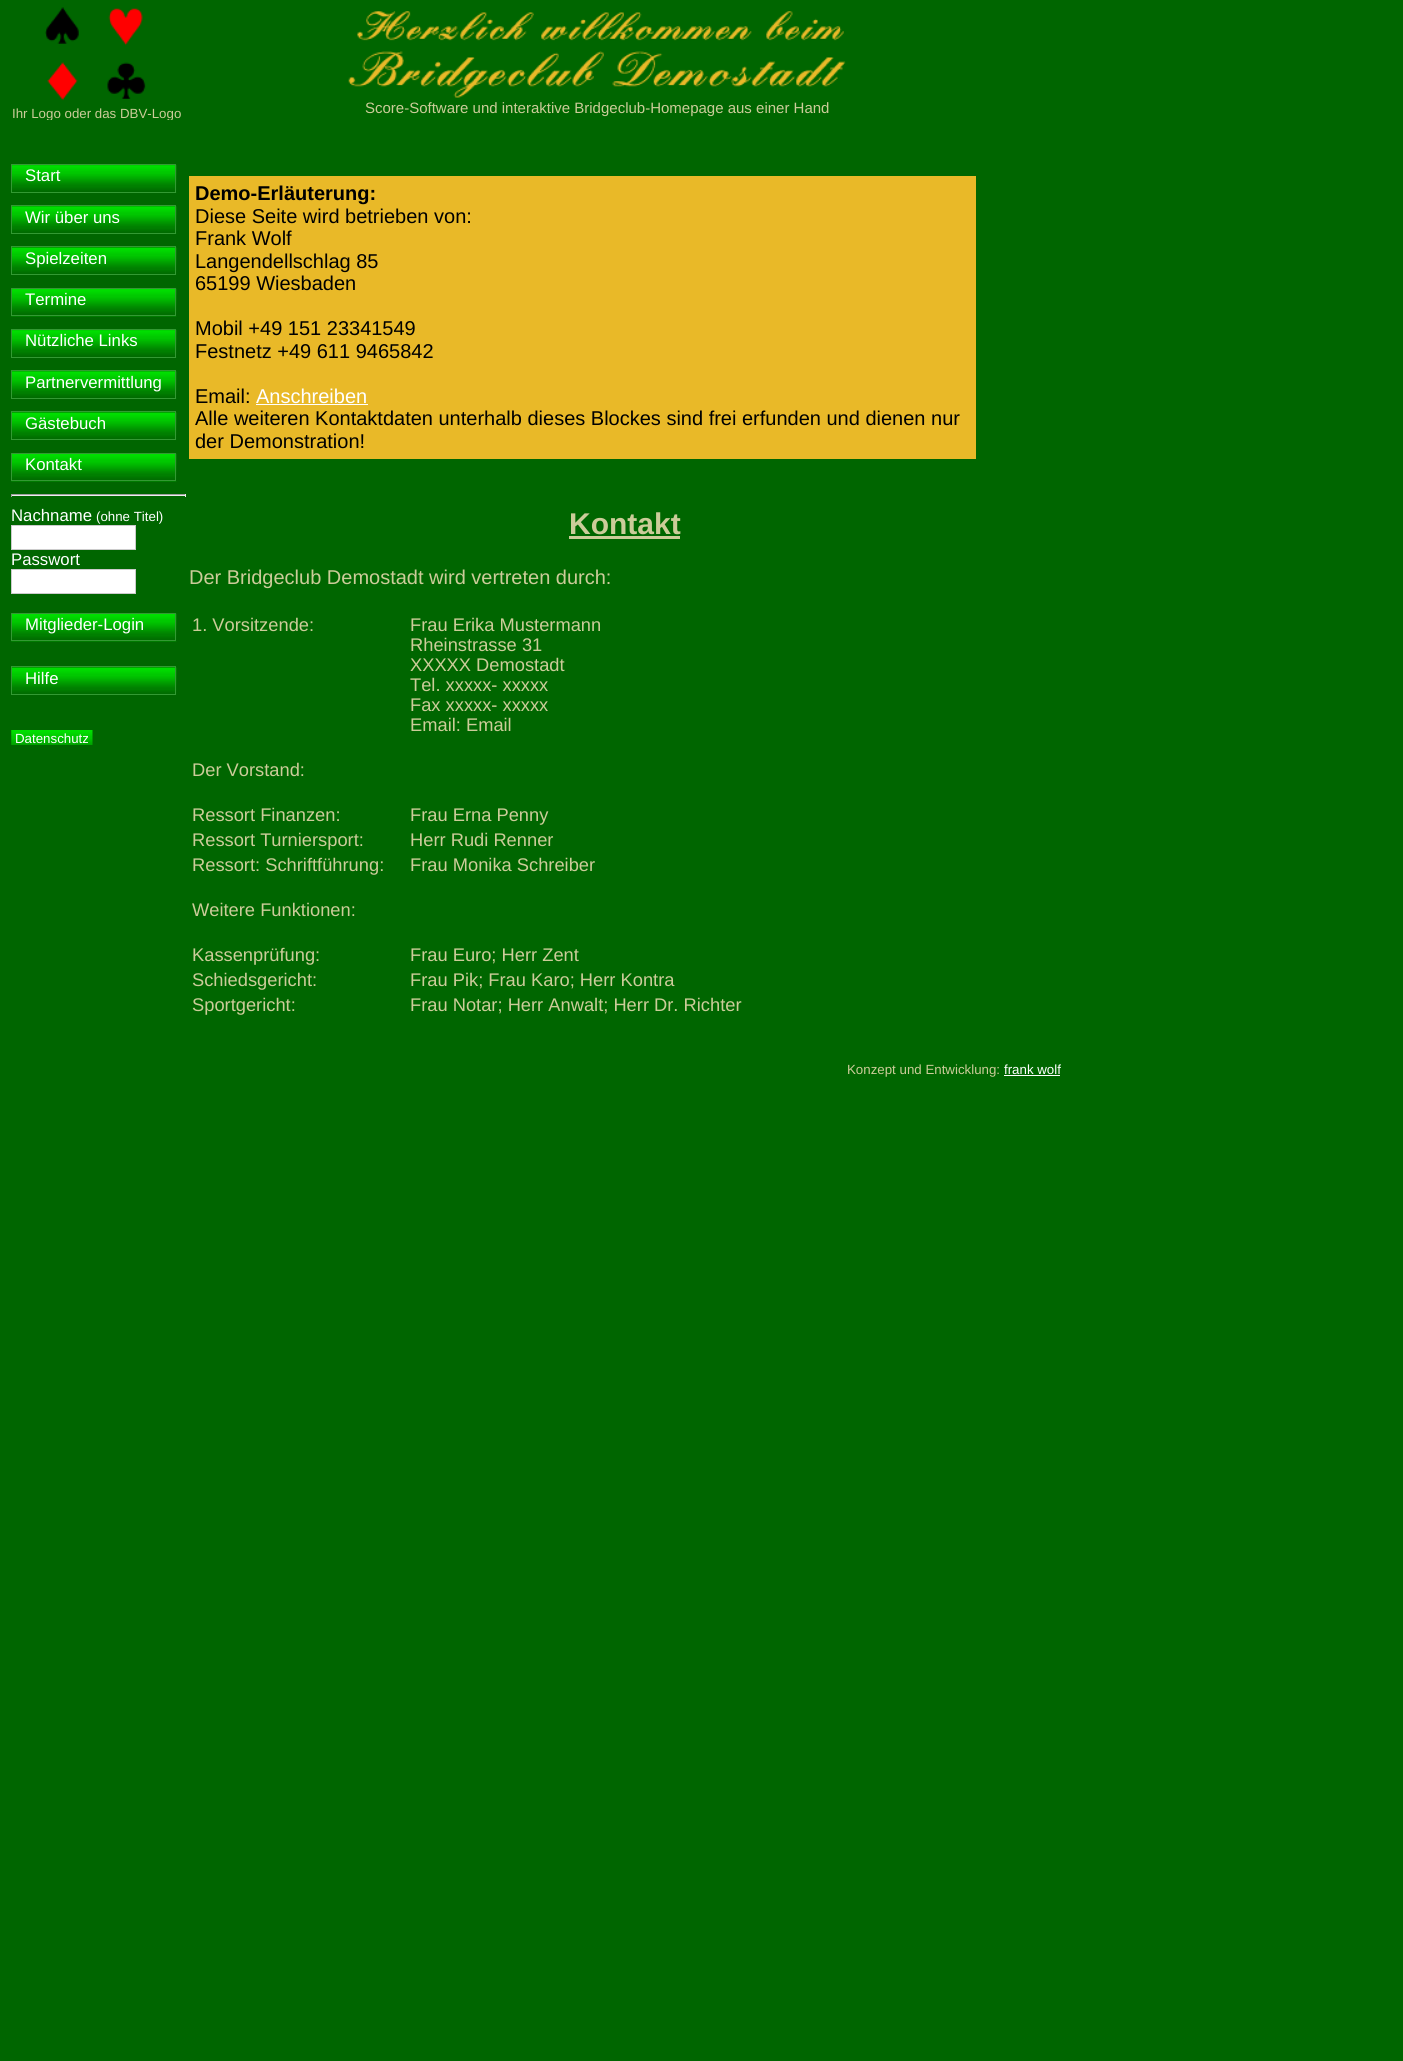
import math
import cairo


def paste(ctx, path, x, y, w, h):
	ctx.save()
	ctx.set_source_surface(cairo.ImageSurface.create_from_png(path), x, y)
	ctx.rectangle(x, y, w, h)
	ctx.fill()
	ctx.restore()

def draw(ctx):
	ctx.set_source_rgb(0, 0.4, 0)
	ctx.paint()
	paste(ctx, 'media/1.png', 45, 7, 101, 94)
	ctx.save()
	ctx.rectangle(0, 3, 194, 117)
	ctx.clip()
	ctx.select_font_face('Liberation Sans')
	ctx.set_font_size(13.3)
	ctx.set_source_rgb(0.8, 0.8, 0.6)
	ctx.move_to(12, 118)
	ctx.show_text('Ihr Logo oder das DBV-Logo')
	ctx.restore()
	paste(ctx, 'media/2.png', 348, 11, 498, 87)
	ctx.select_font_face('Liberation Sans')
	ctx.set_font_size(15)
	ctx.set_source_rgb(0.8, 0.8, 0.6)
	ctx.move_to(365, 113)
	ctx.show_text('Score-Software und interaktive Bridgeclub-Homepage aus einer Hand')
	paste(ctx, 'media/3.png', 12, 164, 165, 29)
	ctx.rectangle(11.5, 164.5, 164, 28)
	ctx.set_source_rgb(0.2, 0.6, 0.2)
	ctx.set_line_width(1)
	ctx.stroke()
	ctx.set_font_size(16.75)
	ctx.set_source_rgb(1, 1, 1)
	ctx.move_to(25, 181)
	ctx.show_text('Start')
	paste(ctx, 'media/4.png', 12, 206, 165, 28)
	ctx.rectangle(11.5, 205.5, 164, 28)
	ctx.set_source_rgb(0.2, 0.6, 0.2)
	ctx.stroke()
	ctx.set_source_rgb(1, 1, 1)
	ctx.move_to(25, 223)
	ctx.show_text('Wir über uns')
	paste(ctx, 'media/5.png', 12, 246, 165, 29)
	ctx.rectangle(11.5, 246.5, 164, 28)
	ctx.set_source_rgb(0.2, 0.6, 0.2)
	ctx.stroke()
	ctx.set_source_rgb(1, 1, 1)
	ctx.move_to(25, 264)
	ctx.show_text('Spielzeiten')
	paste(ctx, 'media/6.png', 11, 288, 166, 29)
	ctx.rectangle(11.5, 288.5, 164, 27)
	ctx.set_source_rgb(0.2, 0.6, 0.2)
	ctx.stroke()
	ctx.set_source_rgb(1, 1, 1)
	ctx.move_to(25, 305)
	ctx.show_text('Termine')
	paste(ctx, 'media/7.png', 12, 329, 165, 29)
	ctx.rectangle(11.5, 329.5, 164, 28)
	ctx.set_source_rgb(0.2, 0.6, 0.2)
	ctx.stroke()
	ctx.set_source_rgb(1, 1, 1)
	ctx.move_to(25, 346)
	ctx.show_text('Nützliche Links')
	paste(ctx, 'media/8.png', 12, 371, 165, 28)
	ctx.rectangle(11.5, 370.5, 164, 28)
	ctx.set_source_rgb(0.2, 0.6, 0.2)
	ctx.stroke()
	ctx.set_source_rgb(1, 1, 1)
	ctx.move_to(25, 388)
	ctx.show_text('Partnervermittlung')
	paste(ctx, 'media/9.png', 12, 411, 165, 29)
	ctx.rectangle(11.5, 411.5, 164, 28)
	ctx.set_source_rgb(0.2, 0.6, 0.2)
	ctx.stroke()
	ctx.set_source_rgb(1, 1, 1)
	ctx.move_to(25, 429)
	ctx.show_text('Gästebuch')
	paste(ctx, 'media/6.png', 11, 453, 166, 29)
	ctx.rectangle(11.5, 453.5, 164, 27)
	ctx.set_source_rgb(0.2, 0.6, 0.2)
	ctx.stroke()
	ctx.set_source_rgb(1, 1, 1)
	ctx.move_to(25, 470)
	ctx.show_text('Kontakt')
	ctx.set_source_rgb(0.624, 0.624, 0.624)
	ctx.rectangle(11, 494, 175, 1)
	ctx.fill()
	ctx.set_source_rgb(0.933, 0.933, 0.933)
	ctx.rectangle(185, 494, 1, 3)
	ctx.rectangle(11, 495, 175, 1)
	ctx.fill()
	ctx.set_source_rgb(0.624, 0.624, 0.624)
	ctx.rectangle(11, 494, 1, 3)
	ctx.fill()
	ctx.set_source_rgb(1, 1, 1)
	ctx.move_to(11, 521)
	ctx.show_text('Nachname')
	ctx.set_font_size(13.3)
	ctx.move_to(96, 521)
	ctx.show_text('(ohne Titel)')
	ctx.rectangle(11.5, 525.5, 124, 24)
	ctx.fill_preserve()
	ctx.set_source_rgb(0.8, 0.8, 0.8)
	ctx.stroke()
	ctx.set_font_size(16.75)
	ctx.set_source_rgb(1, 1, 1)
	ctx.move_to(11, 565)
	ctx.show_text('Passwort')
	ctx.rectangle(11.5, 569.5, 124, 24)
	ctx.fill_preserve()
	ctx.set_source_rgb(0.8, 0.8, 0.8)
	ctx.stroke()
	paste(ctx, 'media/6.png', 11, 613, 166, 29)
	ctx.rectangle(11.5, 613.5, 164, 27)
	ctx.set_source_rgb(0.2, 0.6, 0.2)
	ctx.stroke()
	ctx.set_source_rgb(1, 1, 1)
	ctx.move_to(25, 630)
	ctx.show_text('Mitglieder-Login')
	paste(ctx, 'media/10.png', 12, 666, 165, 29)
	ctx.rectangle(11.5, 666.5, 164, 28)
	ctx.set_source_rgb(0.2, 0.6, 0.2)
	ctx.stroke()
	ctx.set_source_rgb(1, 1, 1)
	ctx.move_to(25, 684)
	ctx.show_text('Hilfe')
	paste(ctx, 'media/11.png', 11, 730, 82, 15)
	ctx.set_font_size(13.3)
	ctx.move_to(15, 743)
	ctx.show_text('Datenschutz')
	ctx.set_source_rgb(0.914, 0.725, 0.157)
	ctx.rectangle(189, 176, 787, 283)
	ctx.fill()
	ctx.select_font_face('Liberation Sans', cairo.FONT_SLANT_NORMAL, cairo.FONT_WEIGHT_BOLD)
	ctx.set_font_size(20)
	ctx.set_source_rgb(0, 0, 0)
	ctx.move_to(195, 200)
	ctx.show_text('Demo-Erläuterung:')
	ctx.select_font_face('Liberation Sans')
	for x, y, s in [
		(195, 223, 'Diese Seite wird betrieben von:'),
		(195, 245, 'Frank Wolf'),
		(195, 268, 'Langendellschlag 85'),
		(195, 290, '65199 Wiesbaden'),
		(195, 335, 'Mobil +49 151 23341549'),
		(195, 358, 'Festnetz +49 611 9465842'),
		(195, 403, 'Email:'),
	]:
		ctx.move_to(x, y)
		ctx.show_text(s)
	ctx.set_source_rgb(1, 1, 1)
	ctx.move_to(256, 403)
	ctx.show_text('Anschreiben')
	ctx.rectangle(256, 404, 112, 1)
	ctx.fill()
	ctx.set_source_rgb(0, 0, 0)
	ctx.move_to(195, 425)
	ctx.show_text('Alle weiteren Kontaktdaten unterhalb dieses Blockes sind frei erfunden und dienen nur')
	ctx.move_to(195, 448)
	ctx.show_text('der Demonstration!')
	ctx.select_font_face('Liberation Sans', cairo.FONT_SLANT_NORMAL, cairo.FONT_WEIGHT_BOLD)
	ctx.set_font_size(30)
	ctx.set_source_rgb(0.8, 0.8, 0.6)
	ctx.move_to(569, 534)
	ctx.show_text('Kontakt')
	ctx.rectangle(569, 536, 111, 3)
	ctx.fill()
	ctx.select_font_face('Liberation Sans')
	ctx.set_font_size(20)
	ctx.move_to(189, 584)
	ctx.show_text('Der Bridgeclub Demostadt wird vertreten durch:')
	ctx.set_font_size(18.3)
	for x, y, s in [
		(192, 631, '1. Vorsitzende:'),
		(410, 631, 'Frau Erika Mustermann'),
		(410, 651, 'Rheinstrasse 31'),
		(410, 671, 'XXXXX Demostadt'),
		(410, 691, 'Tel. xxxxx- xxxxx'),
		(410, 711, 'Fax xxxxx- xxxxx'),
		(410, 731, 'Email: Email'),
		(192, 776, 'Der Vorstand:'),
		(192, 821, 'Ressort Finanzen:'),
		(410, 821, 'Frau Erna Penny'),
		(192, 846, 'Ressort Turniersport:'),
		(410, 846, 'Herr Rudi Renner'),
		(192, 871, 'Ressort: Schriftführung:'),
		(410, 871, 'Frau Monika Schreiber'),
		(192, 916, 'Weitere Funktionen:'),
		(192, 961, 'Kassenprüfung:'),
		(410, 961, 'Frau Euro; Herr Zent'),
		(192, 986, 'Schiedsgericht:'),
		(410, 986, 'Frau Pik; Frau Karo; Herr Kontra'),
		(192, 1011, 'Sportgericht:'),
		(410, 1011, 'Frau Notar; Herr Anwalt; Herr Dr. Richter'),
	]:
		ctx.move_to(x, y)
		ctx.show_text(s)
	ctx.set_font_size(13.3)
	ctx.move_to(847, 1074)
	ctx.show_text('Konzept und Entwicklung:')
	ctx.set_source_rgb(1, 1, 1)
	ctx.move_to(1004, 1074)
	ctx.show_text('frank wolf')
	ctx.rectangle(1004, 1075, 56, 1)
	ctx.fill()


surface = cairo.ImageSurface(cairo.FORMAT_RGB24, 1403, 2061)
ctx = cairo.Context(surface)
options = cairo.FontOptions()
options.set_hint_metrics(cairo.HINT_METRICS_OFF)
options.set_hint_style(cairo.HINT_STYLE_NONE)
ctx.set_font_options(options)
ctx.set_miter_limit(4)
draw(ctx)
surface.write_to_png('image.png')
